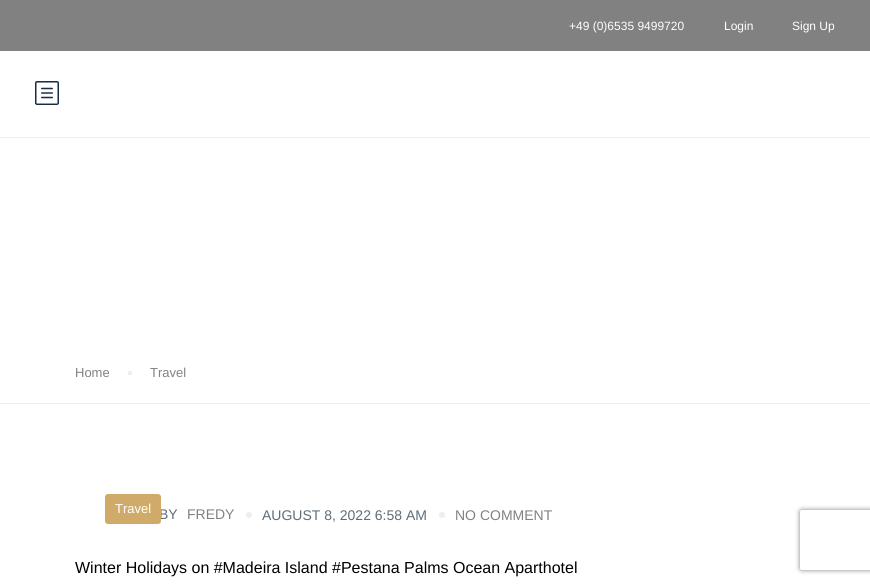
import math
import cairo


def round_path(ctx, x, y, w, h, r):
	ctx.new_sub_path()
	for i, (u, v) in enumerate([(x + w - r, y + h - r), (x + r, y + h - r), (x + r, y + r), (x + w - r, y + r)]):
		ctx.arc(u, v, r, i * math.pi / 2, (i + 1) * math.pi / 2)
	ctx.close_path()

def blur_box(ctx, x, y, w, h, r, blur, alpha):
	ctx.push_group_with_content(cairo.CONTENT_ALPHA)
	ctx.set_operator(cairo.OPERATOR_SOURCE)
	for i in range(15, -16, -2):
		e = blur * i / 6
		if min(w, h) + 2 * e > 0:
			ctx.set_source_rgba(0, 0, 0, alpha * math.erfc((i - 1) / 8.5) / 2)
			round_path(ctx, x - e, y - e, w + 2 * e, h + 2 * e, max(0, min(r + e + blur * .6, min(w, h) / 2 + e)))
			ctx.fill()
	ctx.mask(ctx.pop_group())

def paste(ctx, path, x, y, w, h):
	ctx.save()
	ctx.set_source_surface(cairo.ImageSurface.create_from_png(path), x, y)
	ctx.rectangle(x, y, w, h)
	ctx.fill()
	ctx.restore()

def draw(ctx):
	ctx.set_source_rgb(1, 1, 1)
	ctx.paint()
	ctx.set_source_rgb(0.506, 0.506, 0.506)
	ctx.rectangle(0, 0, 870, 51)
	ctx.fill()
	ctx.select_font_face('Liberation Sans')
	ctx.set_font_size(12)
	ctx.set_source_rgb(1, 1, 1)
	for x, y, s in [
		(569, 30, '+49 (0)6535 9499720'),
		(724, 30, 'Login'),
		(792, 30, 'Sign Up'),
	]:
		ctx.move_to(x, y)
		ctx.show_text(s)
	ctx.set_source_rgb(0.918, 0.933, 0.953)
	ctx.rectangle(0, 137, 870, 1)
	ctx.fill()
	paste(ctx, 'media/1.png', 35, 81, 24, 24)
	ctx.rectangle(0, 403, 870, 1)
	ctx.fill()
	ctx.set_font_size(13)
	ctx.set_source_rgb(0.506, 0.506, 0.506)
	ctx.move_to(75, 377)
	ctx.show_text('Home')
	ctx.set_source_rgb(0.918, 0.933, 0.953)
	ctx.rectangle(128, 371, 4, 4)
	ctx.fill()
	ctx.set_source_rgb(0.506, 0.506, 0.506)
	ctx.move_to(150, 377)
	ctx.show_text('Travel')
	ctx.set_font_size(14)
	ctx.set_source_rgb(0.369, 0.427, 0.467)
	ctx.move_to(159, 519)
	ctx.show_text('BY')
	ctx.set_source_rgb(0.816, 0.667, 0.412)
	round_path(ctx, 105, 494, 56, 30, 3)
	ctx.fill()
	ctx.set_font_size(13)
	ctx.set_source_rgb(1, 1, 1)
	ctx.move_to(115, 513)
	ctx.show_text('Travel')
	ctx.set_font_size(14)
	ctx.set_source_rgb(0.506, 0.506, 0.506)
	ctx.move_to(187, 519)
	ctx.show_text('FREDY')
	ctx.set_source_rgb(0.933, 0.933, 0.933)
	ctx.new_path()
	ctx.arc(249, 515, 3, 0, 2 * math.pi)
	ctx.fill()
	ctx.set_source_rgb(0.369, 0.427, 0.467)
	ctx.move_to(262, 520)
	ctx.show_text('AUGUST 8, 2022 6:58 AM')
	ctx.set_source_rgb(0.933, 0.933, 0.933)
	ctx.new_path()
	ctx.arc(442, 515, 3, 0, 2 * math.pi)
	ctx.fill()
	ctx.set_source_rgb(0.506, 0.506, 0.506)
	ctx.move_to(455, 520)
	ctx.show_text('NO COMMENT')
	ctx.set_font_size(16)
	ctx.set_source_rgb(0, 0, 0)
	ctx.move_to(75, 573)
	ctx.show_text('Winter Holidays on #Madeira Island #Pestana Palms Ocean Aparthotel')
	ctx.save()
	ctx.set_fill_rule(cairo.FILL_RULE_EVEN_ODD)
	ctx.new_path()
	ctx.move_to(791, 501)
	ctx.line_to(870, 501)
	ctx.line_to(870, 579)
	ctx.line_to(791, 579)
	ctx.close_path()
	ctx.move_to(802, 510)
	ctx.line_to(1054, 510)
	ctx.curve_to(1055, 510, 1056, 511, 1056, 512)
	ctx.line_to(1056, 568)
	ctx.curve_to(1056, 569, 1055, 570, 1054, 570)
	ctx.line_to(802, 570)
	ctx.curve_to(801, 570, 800, 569, 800, 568)
	ctx.line_to(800, 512)
	ctx.curve_to(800, 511, 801, 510, 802, 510)
	ctx.close_path()
	ctx.clip()
	ctx.set_source_rgb(0.502, 0.502, 0.502)
	blur_box(ctx, 800, 510, 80, 60, 2, 2.5, 1)
	ctx.restore()


surface = cairo.ImageSurface(cairo.FORMAT_RGB24, 870, 584)
ctx = cairo.Context(surface)
options = cairo.FontOptions()
options.set_hint_metrics(cairo.HINT_METRICS_OFF)
options.set_hint_style(cairo.HINT_STYLE_NONE)
ctx.set_font_options(options)
ctx.set_miter_limit(4)
draw(ctx)
surface.write_to_png('image.png')
